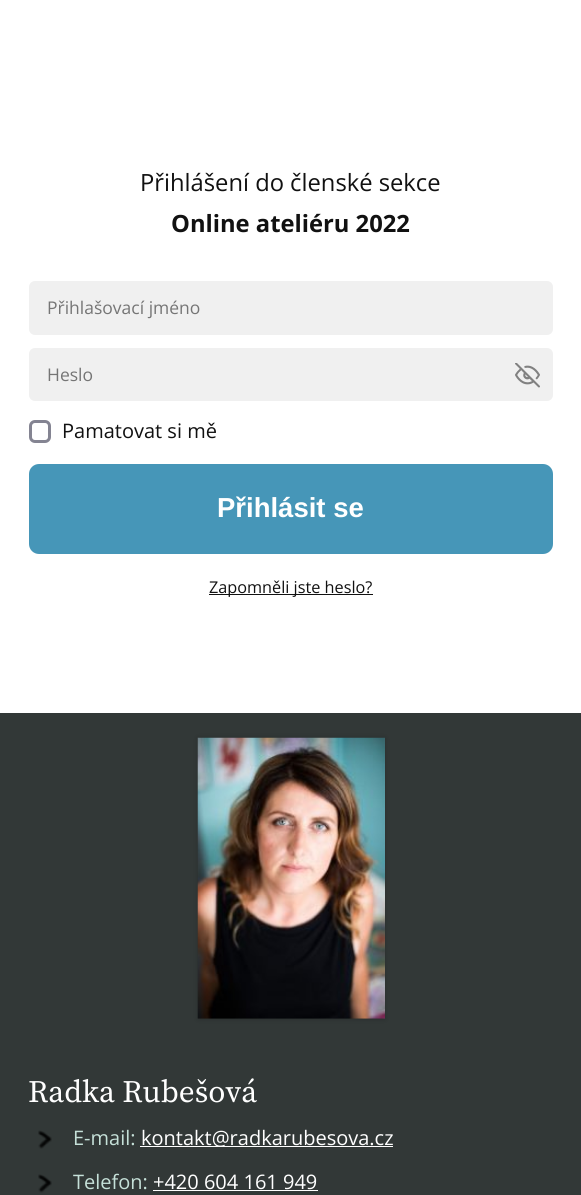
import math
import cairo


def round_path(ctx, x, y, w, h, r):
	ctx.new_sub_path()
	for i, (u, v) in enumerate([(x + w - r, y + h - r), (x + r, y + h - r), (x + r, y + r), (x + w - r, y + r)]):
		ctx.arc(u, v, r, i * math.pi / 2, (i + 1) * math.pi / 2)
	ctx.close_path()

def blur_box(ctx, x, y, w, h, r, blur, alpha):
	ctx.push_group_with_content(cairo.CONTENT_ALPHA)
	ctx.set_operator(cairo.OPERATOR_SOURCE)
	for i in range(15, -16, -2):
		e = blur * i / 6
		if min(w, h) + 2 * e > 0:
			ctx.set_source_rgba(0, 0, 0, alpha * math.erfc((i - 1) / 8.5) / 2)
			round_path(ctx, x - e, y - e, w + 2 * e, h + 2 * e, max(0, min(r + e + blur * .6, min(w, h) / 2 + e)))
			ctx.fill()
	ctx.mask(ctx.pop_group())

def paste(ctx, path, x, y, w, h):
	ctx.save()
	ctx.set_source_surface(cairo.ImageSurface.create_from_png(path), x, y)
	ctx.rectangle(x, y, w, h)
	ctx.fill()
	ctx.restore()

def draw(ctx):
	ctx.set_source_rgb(1, 1, 1)
	ctx.paint()
	ctx.select_font_face('Open Sans')
	ctx.set_font_size(23.75)
	ctx.set_source_rgb(0.067, 0.067, 0.067)
	ctx.move_to(140, 191)
	ctx.show_text('Přihlášení do členské sekce')
	ctx.select_font_face('Open Sans', cairo.FONT_SLANT_NORMAL, cairo.FONT_WEIGHT_BOLD)
	ctx.move_to(171, 232)
	ctx.show_text('Online ateliéru 2022')
	ctx.set_source_rgb(0.941, 0.941, 0.941)
	round_path(ctx, 29, 281, 524, 54, 6)
	ctx.fill()
	ctx.select_font_face('Open Sans')
	ctx.set_font_size(17.5)
	ctx.set_source_rgb(0.459, 0.459, 0.459)
	ctx.move_to(47, 314)
	ctx.show_text('Přihlašovací jméno')
	ctx.set_source_rgb(0.941, 0.941, 0.941)
	round_path(ctx, 29, 348, 524, 53, 6)
	ctx.fill()
	ctx.set_source_rgb(0.459, 0.459, 0.459)
	ctx.move_to(47, 381)
	ctx.show_text('Heslo')
	paste(ctx, 'media/1.png', 515, 363, 25, 25)
	round_path(ctx, 30.5, 421.5, 19, 20, 4.5)
	ctx.set_source_rgb(0.518, 0.518, 0.573)
	ctx.set_line_width(3)
	ctx.stroke()
	ctx.set_font_size(20)
	ctx.set_source_rgb(0.067, 0.067, 0.067)
	ctx.move_to(62, 438)
	ctx.show_text('Pamatovat si mě')
	ctx.set_source_rgb(0.275, 0.588, 0.722)
	round_path(ctx, 29, 464, 524, 90, 10)
	ctx.fill()
	ctx.select_font_face('Liberation Sans', cairo.FONT_SLANT_NORMAL, cairo.FONT_WEIGHT_BOLD)
	ctx.set_font_size(27.5)
	ctx.set_source_rgb(1, 1, 1)
	ctx.move_to(217, 517)
	ctx.show_text('Přihlásit se')
	ctx.set_source_rgb(0.067, 0.067, 0.067)
	ctx.rectangle(209, 594, 164, 1)
	ctx.fill()
	ctx.select_font_face('Open Sans')
	ctx.set_font_size(16.25)
	ctx.move_to(209, 593)
	ctx.show_text('Zapomněli jste heslo?')
	ctx.set_source_rgb(0.196, 0.22, 0.216)
	ctx.rectangle(0, 713, 581, 482)
	ctx.fill()
	ctx.set_source_rgb(0, 0, 0)
	blur_box(ctx, 198, 738, 187, 281, 0, 3, 0.2)
	paste(ctx, 'media/2.png', 197, 737, 188, 282)
	ctx.select_font_face('Source Serif Pro')
	ctx.set_font_size(31.25)
	ctx.set_source_rgb(1, 1, 1)
	ctx.move_to(28, 1102)
	ctx.show_text('Radka Rubešová')
	paste(ctx, 'media/3.png', 38, 1130, 14, 19)
	ctx.select_font_face('Open Sans')
	ctx.set_font_size(20)
	ctx.set_source_rgb(0.773, 0.878, 0.847)
	ctx.move_to(73, 1145)
	ctx.show_text('E-mail:')
	ctx.set_source_rgb(1, 1, 1)
	ctx.rectangle(140, 1146, 253, 1)
	ctx.fill()
	ctx.move_to(141, 1145)
	ctx.show_text('kontakt@radkarubesova.cz')
	paste(ctx, 'media/4.png', 38, 1174, 14, 19)
	ctx.set_source_rgb(0.773, 0.878, 0.847)
	ctx.move_to(73, 1189)
	ctx.show_text('Telefon:')
	ctx.set_source_rgb(1, 1, 1)
	ctx.move_to(153, 1189)
	ctx.show_text('+420 604 161 949')
	ctx.rectangle(153, 1190, 165, 1)
	ctx.fill()


surface = cairo.ImageSurface(cairo.FORMAT_RGB24, 581, 1195)
ctx = cairo.Context(surface)
options = cairo.FontOptions()
options.set_hint_metrics(cairo.HINT_METRICS_OFF)
options.set_hint_style(cairo.HINT_STYLE_NONE)
ctx.set_font_options(options)
ctx.set_miter_limit(4)
draw(ctx)
surface.write_to_png('image.png')
